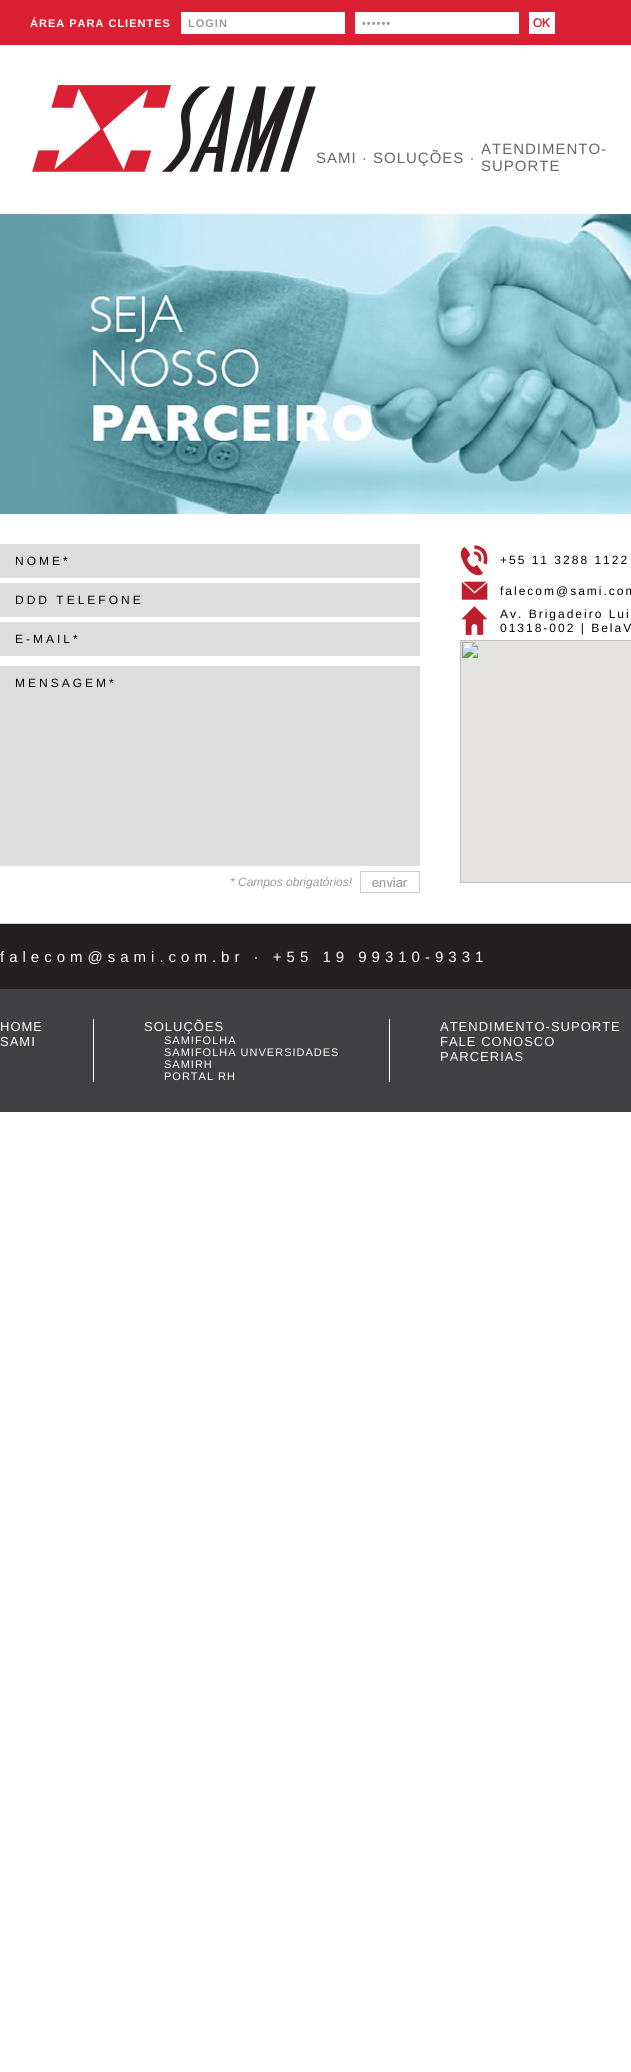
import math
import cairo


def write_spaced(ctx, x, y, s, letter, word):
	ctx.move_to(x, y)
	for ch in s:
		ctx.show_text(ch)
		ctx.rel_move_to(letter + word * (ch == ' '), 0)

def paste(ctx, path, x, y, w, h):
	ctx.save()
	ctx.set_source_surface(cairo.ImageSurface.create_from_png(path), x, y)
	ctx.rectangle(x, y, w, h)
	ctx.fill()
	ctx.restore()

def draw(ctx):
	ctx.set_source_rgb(1, 1, 1)
	ctx.paint()
	ctx.set_source_rgb(0.859, 0.125, 0.2)
	ctx.rectangle(0, 0, 631, 45)
	ctx.fill()
	ctx.select_font_face('Liberation Sans', cairo.FONT_SLANT_NORMAL, cairo.FONT_WEIGHT_BOLD)
	ctx.set_font_size(11)
	ctx.set_source_rgb(1, 1, 1)
	write_spaced(ctx, 30, 27, 'ÁREA PARA CLIENTES', 1, 0)
	ctx.rectangle(181, 12, 164, 22)
	ctx.fill()
	ctx.set_source_rgb(0.6, 0.6, 0.6)
	write_spaced(ctx, 188, 27, 'LOGIN', 1, 0)
	ctx.set_source_rgb(1, 1, 1)
	ctx.rectangle(355, 12, 164, 22)
	ctx.fill()
	ctx.set_source_rgb(0.6, 0.6, 0.6)
	write_spaced(ctx, 362, 27, '••••••', 1, 0)
	paste(ctx, 'media/1.png', 529, 12, 26, 22)
	paste(ctx, 'media/2.png', 30, 85, 286, 88)
	ctx.select_font_face('Liberation Sans')
	ctx.set_font_size(15)
	ctx.set_source_rgb(0.4, 0.4, 0.4)
	for x, y, s in [
		(316, 163, 'SAMI ·'),
		(373, 163, 'SOLUÇÕES ·'),
		(481, 154, 'ATENDIMENTO-'),
		(481, 171, 'SUPORTE'),
	]:
		write_spaced(ctx, x, y, s, 1, 0)
	paste(ctx, 'media/3.png', 0, 214, 38, 300)
	paste(ctx, 'media/4.png', 38, 214, 593, 300)
	ctx.set_source_rgb(0.867, 0.867, 0.867)
	ctx.rectangle(0, 544, 420, 34)
	ctx.fill()
	ctx.set_font_size(12)
	ctx.set_source_rgb(0, 0, 0)
	write_spaced(ctx, 15, 565, 'NOME*', 3, 0)
	ctx.set_source_rgb(0.867, 0.867, 0.867)
	ctx.rectangle(0, 583, 420, 34)
	ctx.fill()
	ctx.set_source_rgb(0, 0, 0)
	write_spaced(ctx, 15, 604, 'DDD TELEFONE', 3, 0)
	ctx.set_source_rgb(0.867, 0.867, 0.867)
	ctx.rectangle(0, 622, 420, 34)
	ctx.fill()
	ctx.set_source_rgb(0, 0, 0)
	write_spaced(ctx, 15, 643, 'E-MAIL*', 3, 0)
	ctx.set_source_rgb(0.867, 0.867, 0.867)
	ctx.rectangle(0, 666, 420, 200)
	ctx.fill()
	ctx.set_source_rgb(0, 0, 0)
	write_spaced(ctx, 15, 687, 'MENSAGEM*', 3, 0)
	ctx.select_font_face('Liberation Sans', cairo.FONT_SLANT_ITALIC)
	ctx.set_source_rgb(0.6, 0.6, 0.6)
	ctx.move_to(230, 886)
	ctx.show_text('* Campos obrigatórios!')
	paste(ctx, 'media/5.png', 360, 871, 60, 22)
	paste(ctx, 'media/6.png', 460, 544, 28, 32)
	ctx.select_font_face('Liberation Sans')
	ctx.set_source_rgb(0, 0, 0)
	write_spaced(ctx, 500, 564, '+55 11 3288 1122', 2, 0)
	paste(ctx, 'media/7.png', 460, 581, 28, 20)
	write_spaced(ctx, 500, 595, 'falecom@sami.com', 2, 0)
	paste(ctx, 'media/8.png', 460, 606, 28, 29)
	write_spaced(ctx, 500, 618, 'Av. Brigadeiro Lui', 2, 0)
	write_spaced(ctx, 500, 632, '01318-002 | BelaV', 2, 0)
	paste(ctx, 'media/9.png', 460, 640, 171, 243)
	ctx.set_source_rgb(0.8, 0.8, 0.8)
	ctx.rectangle(0, 923, 631, 1)
	ctx.fill()
	ctx.set_source_rgb(0.141, 0.125, 0.129)
	ctx.rectangle(0, 924, 631, 65)
	ctx.fill()
	ctx.set_font_size(15)
	ctx.set_source_rgb(1, 1, 1)
	write_spaced(ctx, 0, 962, 'falecom@sami.com.br · +55 19 99310-9331', 5, 0)
	ctx.set_source_rgb(0.255, 0.255, 0.263)
	ctx.rectangle(0, 989, 631, 123)
	ctx.fill()
	ctx.set_font_size(13)
	ctx.set_source_rgb(1, 1, 1)
	write_spaced(ctx, 0, 1031, 'HOME', 1, 0)
	write_spaced(ctx, 0, 1046, 'SAMI', 1, 0)
	ctx.rectangle(93, 1019, 1, 63)
	ctx.fill()
	write_spaced(ctx, 144, 1031, 'SOLUÇÕES', 1, 0)
	ctx.set_font_size(11)
	for x, y, s in [
		(164, 1044, 'SAMIFOLHA'),
		(164, 1056, 'SAMIFOLHA UNVERSIDADES'),
		(164, 1068, 'SAMIRH'),
		(164, 1080, 'PORTAL RH'),
	]:
		write_spaced(ctx, x, y, s, 1, 0)
	ctx.rectangle(389, 1019, 1, 63)
	ctx.fill()
	ctx.set_font_size(13)
	for x, y, s in [
		(440, 1031, 'ATENDIMENTO-SUPORTE'),
		(440, 1046, 'FALE CONOSCO'),
		(440, 1061, 'PARCERIAS'),
	]:
		write_spaced(ctx, x, y, s, 1, 0)


surface = cairo.ImageSurface(cairo.FORMAT_RGB24, 631, 2072)
ctx = cairo.Context(surface)
options = cairo.FontOptions()
options.set_hint_metrics(cairo.HINT_METRICS_OFF)
options.set_hint_style(cairo.HINT_STYLE_NONE)
ctx.set_font_options(options)
ctx.set_miter_limit(4)
draw(ctx)
surface.write_to_png('image.png')
